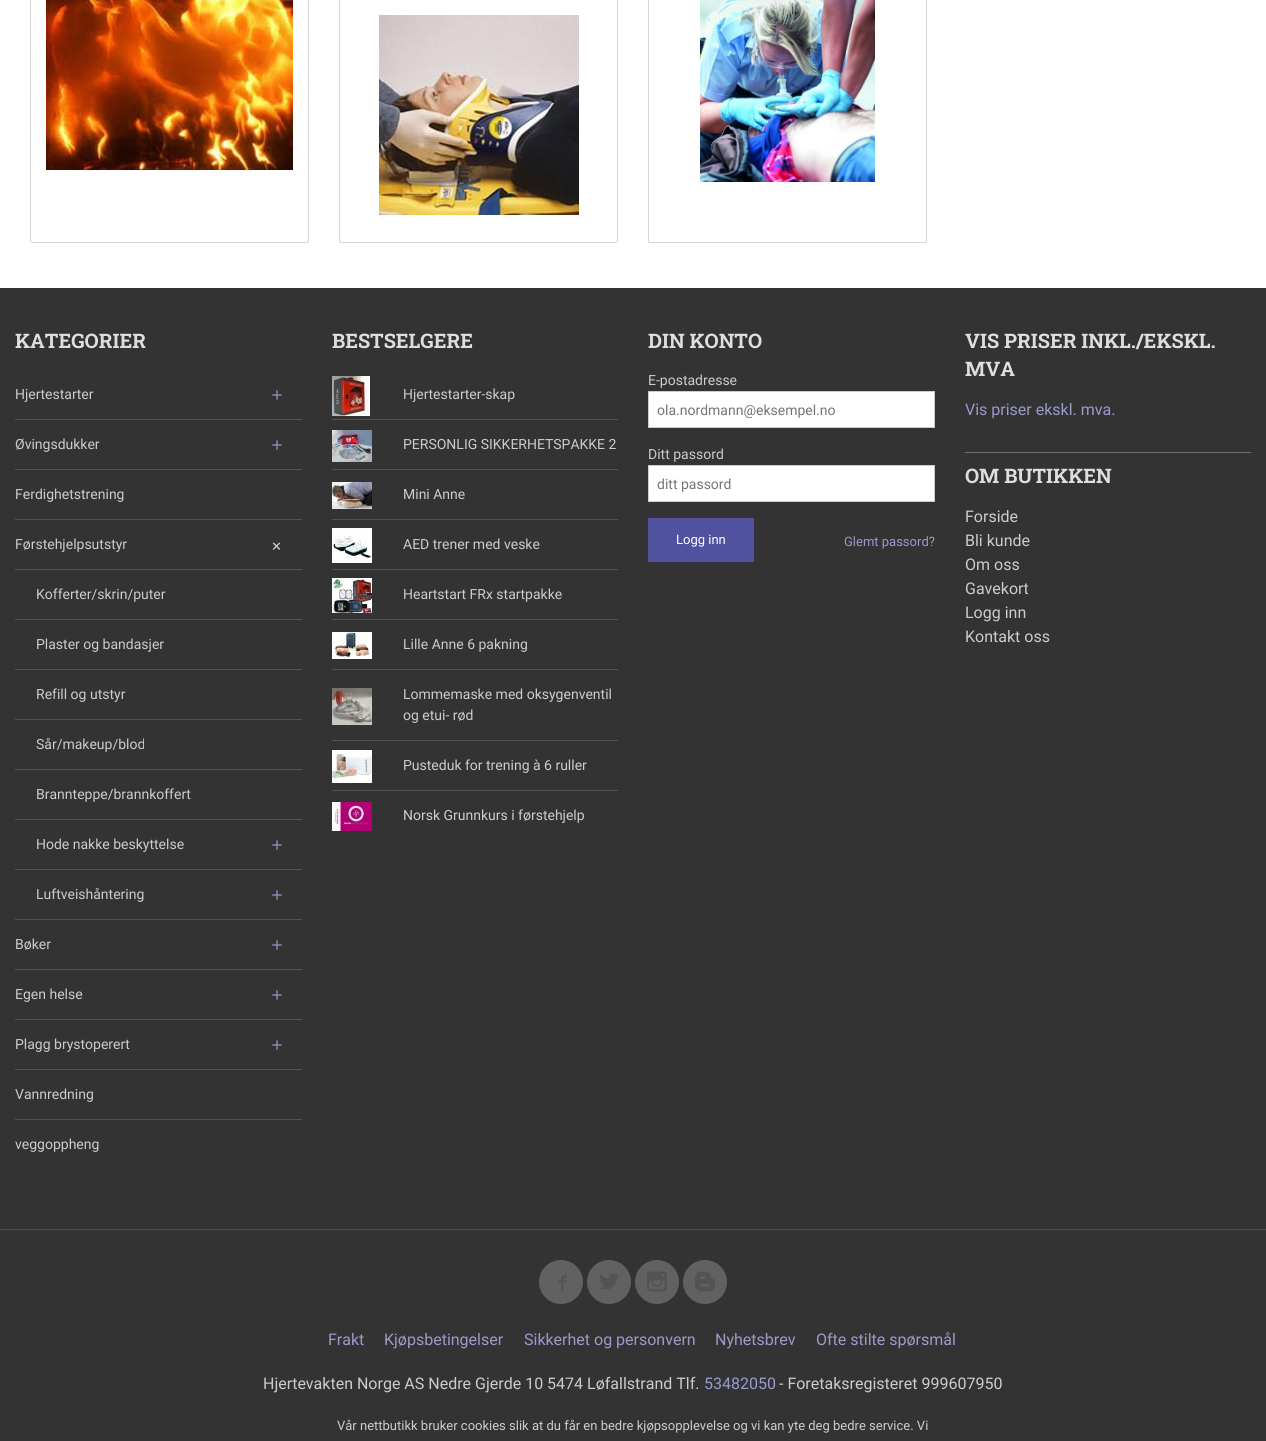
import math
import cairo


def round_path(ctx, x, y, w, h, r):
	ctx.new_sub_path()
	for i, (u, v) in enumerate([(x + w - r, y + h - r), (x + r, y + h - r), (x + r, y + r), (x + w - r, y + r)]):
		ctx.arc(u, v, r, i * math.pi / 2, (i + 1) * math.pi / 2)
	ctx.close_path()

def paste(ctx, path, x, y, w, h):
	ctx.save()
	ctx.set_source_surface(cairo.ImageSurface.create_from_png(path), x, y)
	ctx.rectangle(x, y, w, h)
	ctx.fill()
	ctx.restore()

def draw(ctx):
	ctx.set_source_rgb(1, 1, 1)
	ctx.paint()
	round_path(ctx, 30.5, -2.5, 278, 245, 1.5)
	ctx.set_source_rgb(0.839, 0.839, 0.839)
	ctx.set_line_width(1)
	ctx.stroke()
	paste(ctx, 'media/1.png', 46, 0, 247, 170)
	round_path(ctx, 339.5, -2.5, 278, 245, 1.5)
	ctx.stroke()
	paste(ctx, 'media/2.png', 379, 15, 200, 200)
	round_path(ctx, 648.5, -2.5, 278, 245, 1.5)
	ctx.stroke()
	paste(ctx, 'media/3.png', 700, 0, 175, 182)
	ctx.set_source_rgb(0.2, 0.2, 0.2)
	ctx.rectangle(0, 288, 1266, 941)
	ctx.fill()
	ctx.select_font_face('Roboto Slab', cairo.FONT_SLANT_NORMAL, cairo.FONT_WEIGHT_BOLD)
	ctx.set_font_size(20)
	ctx.set_source_rgb(0.871, 0.871, 0.871)
	ctx.move_to(15, 348)
	ctx.show_text('KATEGORIER')
	ctx.select_font_face('Roboto')
	ctx.set_font_size(14)
	ctx.set_source_rgb(0.8, 0.8, 0.8)
	ctx.move_to(15, 399)
	ctx.show_text('Hjertestarter')
	paste(ctx, 'media/4.png', 272, 390, 10, 10)
	ctx.set_source_rgb(0.322, 0.322, 0.322)
	ctx.rectangle(15, 419, 287, 1)
	ctx.fill()
	ctx.set_source_rgb(0.8, 0.8, 0.8)
	ctx.move_to(15, 449)
	ctx.show_text('Øvingsdukker')
	paste(ctx, 'media/4.png', 272, 440, 10, 10)
	ctx.set_source_rgb(0.322, 0.322, 0.322)
	ctx.rectangle(15, 469, 287, 1)
	ctx.fill()
	ctx.set_source_rgb(0.8, 0.8, 0.8)
	ctx.move_to(15, 499)
	ctx.show_text('Ferdighetstrening')
	ctx.set_source_rgb(0.322, 0.322, 0.322)
	ctx.rectangle(15, 519, 287, 1)
	ctx.fill()
	ctx.set_source_rgb(0.8, 0.8, 0.8)
	ctx.move_to(15, 549)
	ctx.show_text('Førstehjelpsutstyr')
	paste(ctx, 'media/5.png', 272, 542, 9, 8)
	ctx.set_source_rgb(0.322, 0.322, 0.322)
	ctx.rectangle(15, 569, 287, 1)
	ctx.fill()
	ctx.set_source_rgb(0.8, 0.8, 0.8)
	ctx.move_to(36, 599)
	ctx.show_text('Kofferter/skrin/puter')
	ctx.set_source_rgb(0.322, 0.322, 0.322)
	ctx.rectangle(15, 619, 287, 1)
	ctx.fill()
	ctx.set_source_rgb(0.8, 0.8, 0.8)
	ctx.move_to(36, 649)
	ctx.show_text('Plaster og bandasjer')
	ctx.set_source_rgb(0.322, 0.322, 0.322)
	ctx.rectangle(15, 669, 287, 1)
	ctx.fill()
	ctx.set_source_rgb(0.8, 0.8, 0.8)
	ctx.move_to(36, 699)
	ctx.show_text('Refill og utstyr')
	ctx.set_source_rgb(0.322, 0.322, 0.322)
	ctx.rectangle(15, 719, 287, 1)
	ctx.fill()
	ctx.set_source_rgb(0.8, 0.8, 0.8)
	ctx.move_to(36, 749)
	ctx.show_text('Sår/makeup/blod')
	ctx.set_source_rgb(0.322, 0.322, 0.322)
	ctx.rectangle(15, 769, 287, 1)
	ctx.fill()
	ctx.set_source_rgb(0.8, 0.8, 0.8)
	ctx.move_to(36, 799)
	ctx.show_text('Brannteppe/brannkoffert')
	ctx.set_source_rgb(0.322, 0.322, 0.322)
	ctx.rectangle(15, 819, 287, 1)
	ctx.fill()
	ctx.set_source_rgb(0.8, 0.8, 0.8)
	ctx.move_to(36, 849)
	ctx.show_text('Hode nakke beskyttelse')
	paste(ctx, 'media/4.png', 272, 840, 10, 10)
	ctx.set_source_rgb(0.322, 0.322, 0.322)
	ctx.rectangle(15, 869, 287, 1)
	ctx.fill()
	ctx.set_source_rgb(0.8, 0.8, 0.8)
	ctx.move_to(36, 899)
	ctx.show_text('Luftveishåntering')
	paste(ctx, 'media/4.png', 272, 890, 10, 10)
	ctx.set_source_rgb(0.322, 0.322, 0.322)
	ctx.rectangle(15, 919, 287, 1)
	ctx.fill()
	ctx.set_source_rgb(0.8, 0.8, 0.8)
	ctx.move_to(15, 949)
	ctx.show_text('Bøker')
	paste(ctx, 'media/4.png', 272, 940, 10, 10)
	ctx.set_source_rgb(0.322, 0.322, 0.322)
	ctx.rectangle(15, 969, 287, 1)
	ctx.fill()
	ctx.set_source_rgb(0.8, 0.8, 0.8)
	ctx.move_to(15, 999)
	ctx.show_text('Egen helse')
	paste(ctx, 'media/4.png', 272, 990, 10, 10)
	ctx.set_source_rgb(0.322, 0.322, 0.322)
	ctx.rectangle(15, 1019, 287, 1)
	ctx.fill()
	ctx.set_source_rgb(0.8, 0.8, 0.8)
	ctx.move_to(15, 1049)
	ctx.show_text('Plagg brystoperert')
	paste(ctx, 'media/4.png', 272, 1040, 10, 10)
	ctx.set_source_rgb(0.322, 0.322, 0.322)
	ctx.rectangle(15, 1069, 287, 1)
	ctx.fill()
	ctx.set_source_rgb(0.8, 0.8, 0.8)
	ctx.move_to(15, 1099)
	ctx.show_text('Vannredning')
	ctx.set_source_rgb(0.322, 0.322, 0.322)
	ctx.rectangle(15, 1119, 287, 1)
	ctx.fill()
	ctx.set_source_rgb(0.8, 0.8, 0.8)
	ctx.move_to(15, 1149)
	ctx.show_text('veggoppheng')
	ctx.select_font_face('Roboto Slab', cairo.FONT_SLANT_NORMAL, cairo.FONT_WEIGHT_BOLD)
	ctx.set_font_size(20)
	ctx.set_source_rgb(0.871, 0.871, 0.871)
	ctx.move_to(332, 348)
	ctx.show_text('BESTSELGERE')
	ctx.set_source_rgb(0.322, 0.322, 0.322)
	ctx.rectangle(332, 419, 286, 1)
	ctx.fill()
	paste(ctx, 'media/6.png', 332, 376, 38, 40)
	ctx.select_font_face('Roboto')
	ctx.set_font_size(14)
	ctx.set_source_rgb(0.8, 0.8, 0.8)
	ctx.move_to(403, 399)
	ctx.show_text('Hjertestarter-skap')
	ctx.set_source_rgb(0.322, 0.322, 0.322)
	ctx.rectangle(332, 469, 286, 1)
	ctx.fill()
	paste(ctx, 'media/7.png', 332, 430, 40, 32)
	ctx.set_source_rgb(0.8, 0.8, 0.8)
	ctx.move_to(403, 449)
	ctx.show_text('PERSONLIG SIKKERHETSPAKKE 2')
	ctx.set_source_rgb(0.322, 0.322, 0.322)
	ctx.rectangle(332, 519, 286, 1)
	ctx.fill()
	paste(ctx, 'media/8.png', 332, 482, 40, 27)
	ctx.set_source_rgb(0.8, 0.8, 0.8)
	ctx.move_to(403, 499)
	ctx.show_text('Mini Anne')
	ctx.set_source_rgb(0.322, 0.322, 0.322)
	ctx.rectangle(332, 569, 286, 1)
	ctx.fill()
	paste(ctx, 'media/9.png', 332, 528, 40, 35)
	ctx.set_source_rgb(0.8, 0.8, 0.8)
	ctx.move_to(403, 549)
	ctx.show_text('AED trener med veske')
	ctx.set_source_rgb(0.322, 0.322, 0.322)
	ctx.rectangle(332, 619, 286, 1)
	ctx.fill()
	paste(ctx, 'media/10.png', 332, 578, 40, 35)
	ctx.set_source_rgb(0.8, 0.8, 0.8)
	ctx.move_to(403, 599)
	ctx.show_text('Heartstart FRx startpakke')
	ctx.set_source_rgb(0.322, 0.322, 0.322)
	ctx.rectangle(332, 669, 286, 1)
	ctx.fill()
	paste(ctx, 'media/11.png', 332, 632, 40, 27)
	ctx.set_source_rgb(0.8, 0.8, 0.8)
	ctx.move_to(403, 649)
	ctx.show_text('Lille Anne 6 pakning')
	ctx.set_source_rgb(0.322, 0.322, 0.322)
	ctx.rectangle(332, 740, 286, 1)
	ctx.fill()
	paste(ctx, 'media/12.png', 332, 688, 40, 37)
	ctx.set_source_rgb(0.8, 0.8, 0.8)
	ctx.move_to(403, 699)
	ctx.show_text('Lommemaske med oksygenventil')
	ctx.move_to(403, 720)
	ctx.show_text('og etui- rød')
	ctx.set_source_rgb(0.322, 0.322, 0.322)
	ctx.rectangle(332, 790, 286, 1)
	ctx.fill()
	paste(ctx, 'media/13.png', 332, 750, 40, 33)
	ctx.set_source_rgb(0.8, 0.8, 0.8)
	ctx.move_to(403, 770)
	ctx.show_text('Pusteduk for trening à 6 ruller')
	paste(ctx, 'media/14.png', 332, 802, 40, 29)
	ctx.move_to(403, 820)
	ctx.show_text('Norsk Grunnkurs i førstehjelp')
	ctx.select_font_face('Roboto Slab', cairo.FONT_SLANT_NORMAL, cairo.FONT_WEIGHT_BOLD)
	ctx.set_font_size(20)
	ctx.set_source_rgb(0.871, 0.871, 0.871)
	ctx.move_to(648, 348)
	ctx.show_text('DIN KONTO')
	ctx.select_font_face('Roboto')
	ctx.set_font_size(14)
	ctx.set_source_rgb(0.8, 0.8, 0.8)
	ctx.move_to(648, 385)
	ctx.show_text('E-postadresse')
	ctx.set_source_rgb(1, 1, 1)
	ctx.rectangle(648.5, 391.5, 286, 36)
	ctx.fill_preserve()
	ctx.set_source_rgb(0.8, 0.8, 0.8)
	ctx.stroke()
	ctx.set_source_rgb(0.459, 0.459, 0.459)
	ctx.move_to(657, 415)
	ctx.show_text('ola.nordmann@eksempel.no')
	ctx.set_source_rgb(0.8, 0.8, 0.8)
	ctx.move_to(648, 459)
	ctx.show_text('Ditt passord')
	ctx.set_source_rgb(1, 1, 1)
	ctx.rectangle(648.5, 465.5, 286, 36)
	ctx.fill_preserve()
	ctx.set_source_rgb(0.8, 0.8, 0.8)
	ctx.stroke()
	ctx.set_source_rgb(0.459, 0.459, 0.459)
	ctx.move_to(657, 489)
	ctx.show_text('ditt passord')
	ctx.set_source_rgb(0.318, 0.322, 0.624)
	ctx.rectangle(648, 518, 106, 44)
	ctx.fill()
	ctx.set_font_size(13)
	ctx.set_source_rgb(1, 1, 1)
	ctx.move_to(676, 544)
	ctx.show_text('Logg inn')
	ctx.set_source_rgb(0.604, 0.604, 0.796)
	ctx.move_to(844, 546)
	ctx.show_text('Glemt passord?')
	ctx.set_source_rgb(0.439, 0.439, 0.439)
	ctx.rectangle(965, 452, 286, 1)
	ctx.fill()
	ctx.select_font_face('Roboto Slab', cairo.FONT_SLANT_NORMAL, cairo.FONT_WEIGHT_BOLD)
	ctx.set_font_size(20)
	ctx.set_source_rgb(0.871, 0.871, 0.871)
	ctx.move_to(965, 348)
	ctx.show_text('VIS PRISER INKL./EKSKL.')
	ctx.move_to(965, 376)
	ctx.show_text('MVA')
	ctx.select_font_face('Roboto')
	ctx.set_font_size(16)
	ctx.set_source_rgb(0.604, 0.604, 0.796)
	ctx.move_to(965, 415)
	ctx.show_text('Vis priser ekskl. mva.')
	ctx.select_font_face('Roboto Slab', cairo.FONT_SLANT_NORMAL, cairo.FONT_WEIGHT_BOLD)
	ctx.set_font_size(20)
	ctx.set_source_rgb(0.871, 0.871, 0.871)
	ctx.move_to(965, 483)
	ctx.show_text('OM BUTIKKEN')
	ctx.select_font_face('Roboto')
	ctx.set_font_size(16)
	ctx.set_source_rgb(0.8, 0.8, 0.8)
	for x, y, s in [
		(965, 522, 'Forside'),
		(965, 546, 'Bli kunde'),
		(965, 570, 'Om oss'),
		(965, 594, 'Gavekort'),
		(965, 618, 'Logg inn'),
		(965, 642, 'Kontakt oss'),
	]:
		ctx.move_to(x, y)
		ctx.show_text(s)
	ctx.set_source_rgb(0.2, 0.2, 0.2)
	ctx.rectangle(0, 1230, 1266, 211)
	ctx.fill()
	ctx.set_source_rgb(0.302, 0.302, 0.302)
	ctx.rectangle(0, 1229, 1266, 1)
	ctx.fill()
	ctx.set_source_rgb(0.38, 0.38, 0.38)
	ctx.arc(561, 1282, 22, 0, 2 * math.pi)
	ctx.fill()
	paste(ctx, 'media/15.png', 558, 1275, 9, 17)
	ctx.arc(609, 1282, 22, 0, 2 * math.pi)
	ctx.fill()
	paste(ctx, 'media/16.png', 600, 1273, 19, 17)
	ctx.arc(657, 1282, 22, 0, 2 * math.pi)
	ctx.fill()
	paste(ctx, 'media/17.png', 647, 1271, 20, 21)
	ctx.arc(705, 1282, 22, 0, 2 * math.pi)
	ctx.fill()
	paste(ctx, 'media/18.png', 695, 1271, 20, 21)
	ctx.set_source_rgb(0.604, 0.604, 0.796)
	for x, y, s in [
		(328, 1345, 'Frakt'),
		(384, 1345, 'Kjøpsbetingelser'),
		(524, 1345, 'Sikkerhet og personvern'),
		(715, 1345, 'Nyhetsbrev'),
		(816, 1345, 'Ofte stilte spørsmål'),
	]:
		ctx.move_to(x, y)
		ctx.show_text(s)
	ctx.set_source_rgb(0.8, 0.8, 0.8)
	ctx.move_to(263, 1389)
	ctx.show_text('Hjertevakten Norge AS Nedre Gjerde 10 5474 Løfallstrand Tlf.')
	ctx.set_source_rgb(0.604, 0.604, 0.796)
	ctx.move_to(704, 1389)
	ctx.show_text('53482050')
	ctx.set_source_rgb(0.8, 0.8, 0.8)
	ctx.move_to(779, 1389)
	ctx.show_text('- Foretaksregisteret 999607950')
	ctx.set_font_size(13)
	ctx.move_to(337, 1430)
	ctx.show_text('Vår nettbutikk bruker cookies slik at du får en bedre kjøpsopplevelse og vi kan yte deg bedre service. Vi')


surface = cairo.ImageSurface(cairo.FORMAT_RGB24, 1266, 1441)
ctx = cairo.Context(surface)
options = cairo.FontOptions()
options.set_hint_metrics(cairo.HINT_METRICS_OFF)
options.set_hint_style(cairo.HINT_STYLE_NONE)
ctx.set_font_options(options)
ctx.set_miter_limit(4)
draw(ctx)
surface.write_to_png('image.png')
